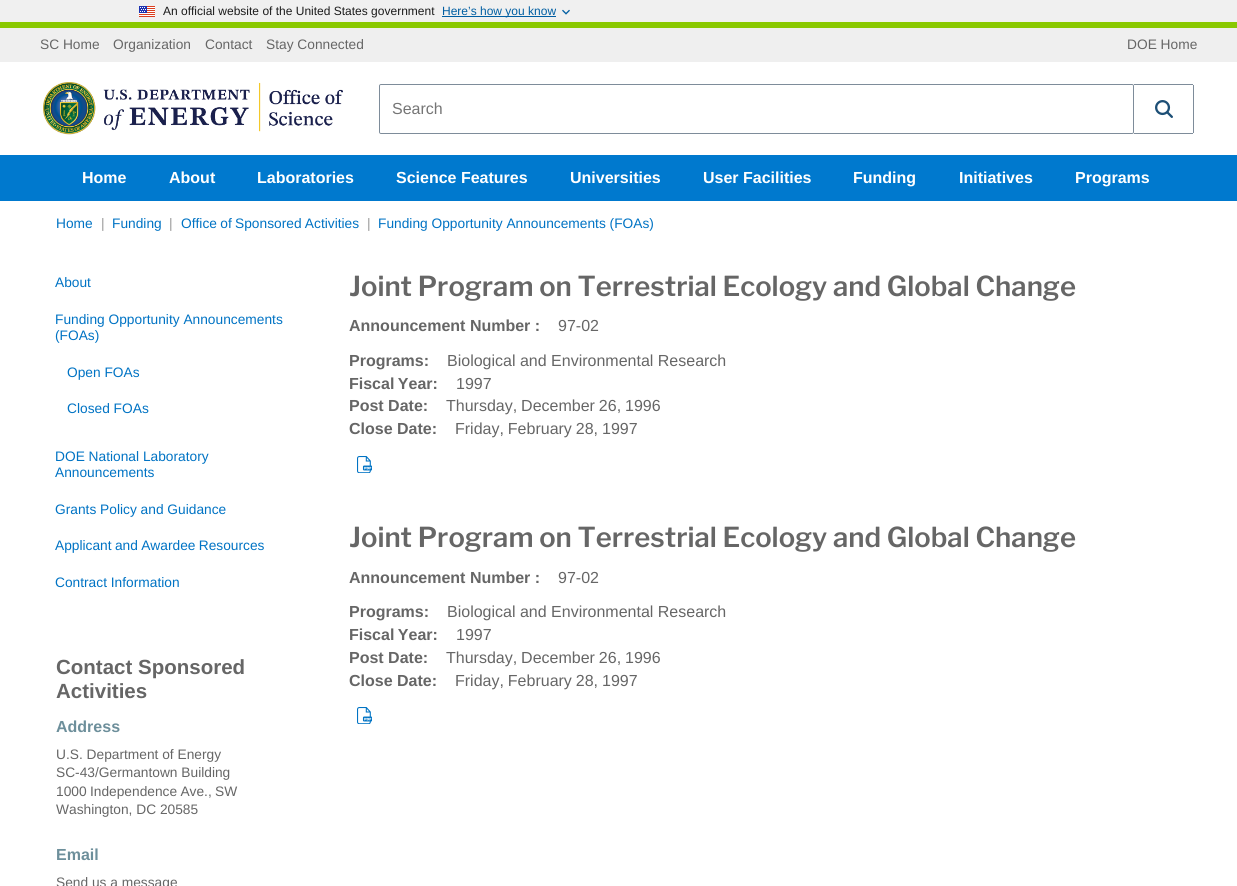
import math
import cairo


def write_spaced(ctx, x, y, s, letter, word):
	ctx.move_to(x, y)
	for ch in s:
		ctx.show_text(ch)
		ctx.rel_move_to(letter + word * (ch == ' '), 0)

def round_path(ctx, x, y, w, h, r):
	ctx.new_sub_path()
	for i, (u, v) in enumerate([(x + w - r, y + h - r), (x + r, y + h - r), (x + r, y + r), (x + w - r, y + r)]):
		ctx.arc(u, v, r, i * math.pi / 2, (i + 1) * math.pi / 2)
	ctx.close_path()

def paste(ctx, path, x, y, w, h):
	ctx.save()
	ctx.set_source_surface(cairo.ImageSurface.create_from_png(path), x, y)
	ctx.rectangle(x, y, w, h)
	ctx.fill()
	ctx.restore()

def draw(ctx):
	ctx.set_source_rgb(1, 1, 1)
	ctx.paint()
	ctx.set_source_rgb(0.941, 0.941, 0.941)
	ctx.rectangle(0, 0, 1237, 22)
	ctx.fill()
	paste(ctx, 'media/1.png', 139, 6, 16, 11)
	ctx.select_font_face('Liberation Sans')
	ctx.set_font_size(12)
	ctx.set_source_rgb(0.106, 0.106, 0.106)
	ctx.move_to(163, 15)
	ctx.show_text('An official website of the United States government')
	ctx.set_source_rgb(0, 0.369, 0.635)
	ctx.rectangle(442, 16, 114, 1)
	ctx.fill()
	ctx.move_to(442, 15)
	ctx.show_text('Here’s how you know')
	paste(ctx, 'media/2.png', 562, 9, 8, 6)
	ctx.set_source_rgb(0.537, 0.784, 0)
	ctx.rectangle(0, 22, 1237, 6)
	ctx.fill()
	ctx.set_source_rgb(0.937, 0.937, 0.937)
	ctx.rectangle(0, 28, 1237, 34)
	ctx.fill()
	ctx.set_font_size(13.75)
	ctx.set_source_rgb(0.4, 0.4, 0.4)
	for x, y, s in [
		(40, 49, 'SC Home'),
		(113, 49, 'Organization'),
		(205, 49, 'Contact'),
		(266, 49, 'Stay Connected'),
		(1127, 49, 'DOE Home'),
	]:
		ctx.move_to(x, y)
		ctx.show_text(s)
	paste(ctx, 'media/3.png', 43, 82, 300, 53)
	round_path(ctx, 379.5, 84.5, 754, 49, 1.5)
	ctx.set_source_rgb(0.494, 0.549, 0.604)
	ctx.set_line_width(1)
	ctx.stroke()
	ctx.set_source_rgb(1, 1, 1)
	round_path(ctx, 380, 85, 753, 48, 2)
	ctx.fill()
	ctx.set_font_size(16)
	ctx.set_source_rgb(0.459, 0.459, 0.459)
	ctx.move_to(392, 114)
	ctx.show_text('Search')
	ctx.set_source_rgb(0.494, 0.549, 0.604)
	ctx.rectangle(1134, 84, 59, 1)
	ctx.rectangle(1193, 85, 1, 48)
	ctx.rectangle(1134, 133, 59, 1)
	ctx.fill()
	paste(ctx, 'media/4.png', 1155, 100, 18, 18)
	ctx.set_source_rgb(0, 0.475, 0.808)
	ctx.rectangle(0, 155, 1237, 46)
	ctx.fill()
	ctx.select_font_face('Liberation Sans', cairo.FONT_SLANT_NORMAL, cairo.FONT_WEIGHT_BOLD)
	ctx.set_source_rgb(1, 1, 1)
	for x, y, s in [
		(82, 183, 'Home'),
		(169, 183, 'About'),
		(257, 183, 'Laboratories'),
		(396, 183, 'Science Features'),
		(570, 183, 'Universities'),
		(703, 183, 'User Facilities'),
		(853, 183, 'Funding'),
		(959, 183, 'Initiatives'),
		(1075, 183, 'Programs'),
	]:
		ctx.move_to(x, y)
		ctx.show_text(s)
	ctx.select_font_face('Liberation Sans')
	ctx.set_font_size(13.75)
	ctx.set_source_rgb(0, 0.451, 0.769)
	ctx.move_to(56, 228)
	ctx.show_text('Home')
	ctx.set_source_rgb(0.6, 0.6, 0.6)
	ctx.move_to(101, 228)
	ctx.show_text('|')
	ctx.set_source_rgb(0, 0.451, 0.769)
	ctx.move_to(112, 228)
	ctx.show_text('Funding')
	ctx.set_source_rgb(0.6, 0.6, 0.6)
	ctx.move_to(169, 228)
	ctx.show_text('|')
	ctx.set_source_rgb(0, 0.451, 0.769)
	write_spaced(ctx, 181, 228, 'Office of Sponsored Activities', 0, -0.5)
	ctx.set_source_rgb(0.6, 0.6, 0.6)
	ctx.move_to(367, 228)
	ctx.show_text('|')
	ctx.set_source_rgb(0, 0.451, 0.769)
	for x, y, s in [
		(378, 228, 'Funding Opportunity Announcements (FOAs)'),
		(55, 287, 'About'),
		(55, 324, 'Funding Opportunity Announcements'),
		(55, 340, '(FOAs)'),
		(67, 377, 'Open FOAs'),
		(67, 413, 'Closed FOAs'),
		(55, 461, 'DOE National Laboratory'),
		(55, 477, 'Announcements'),
		(55, 514, 'Grants Policy and Guidance'),
	]:
		ctx.move_to(x, y)
		ctx.show_text(s)
	write_spaced(ctx, 55, 550, 'Applicant and Awardee Resources', 0, -0.5)
	ctx.move_to(55, 587)
	ctx.show_text('Contract Information')
	ctx.select_font_face('Liberation Sans', cairo.FONT_SLANT_NORMAL, cairo.FONT_WEIGHT_BOLD)
	ctx.set_font_size(20.5)
	ctx.set_source_rgb(0.4, 0.4, 0.4)
	ctx.move_to(56, 674)
	ctx.show_text('Contact Sponsored')
	ctx.move_to(56, 698)
	ctx.show_text('Activities')
	ctx.set_font_size(16)
	ctx.set_source_rgb(0.427, 0.561, 0.608)
	ctx.move_to(56, 732)
	ctx.show_text('Address')
	ctx.select_font_face('Liberation Sans')
	ctx.set_font_size(13.75)
	ctx.set_source_rgb(0.4, 0.4, 0.4)
	ctx.move_to(56, 759)
	ctx.show_text('U.S. Department of Energy')
	ctx.move_to(56, 777)
	ctx.show_text('SC-43/Germantown Building')
	write_spaced(ctx, 56, 796, '1000 Independence Ave., SW', 0, -0.5)
	ctx.move_to(56, 814)
	ctx.show_text('Washington, DC 20585')
	ctx.select_font_face('Liberation Sans', cairo.FONT_SLANT_NORMAL, cairo.FONT_WEIGHT_BOLD)
	ctx.set_font_size(16)
	ctx.set_source_rgb(0.427, 0.561, 0.608)
	ctx.move_to(56, 860)
	ctx.show_text('Email')
	ctx.select_font_face('Liberation Sans')
	ctx.set_font_size(13.75)
	ctx.set_source_rgb(0.4, 0.4, 0.4)
	ctx.move_to(56, 887)
	ctx.show_text('Send us a message')
	ctx.select_font_face('Libre Franklin SemiBold')
	ctx.set_font_size(27.4)
	ctx.move_to(349, 296)
	ctx.show_text('Joint Program on Terrestrial Ecology and Global Change')
	ctx.select_font_face('Liberation Sans', cairo.FONT_SLANT_NORMAL, cairo.FONT_WEIGHT_BOLD)
	ctx.set_font_size(16)
	ctx.move_to(349, 331)
	ctx.show_text('Announcement Number :')
	ctx.select_font_face('Liberation Sans')
	ctx.move_to(558, 331)
	ctx.show_text('97-02')
	ctx.select_font_face('Liberation Sans', cairo.FONT_SLANT_NORMAL, cairo.FONT_WEIGHT_BOLD)
	ctx.move_to(349, 366)
	ctx.show_text('Programs:')
	ctx.select_font_face('Liberation Sans')
	ctx.move_to(447, 366)
	ctx.show_text('Biological and Environmental Research')
	ctx.select_font_face('Liberation Sans', cairo.FONT_SLANT_NORMAL, cairo.FONT_WEIGHT_BOLD)
	write_spaced(ctx, 349, 389, 'Fiscal Year:', 0, -1)
	ctx.select_font_face('Liberation Sans')
	ctx.move_to(456, 389)
	ctx.show_text('1997')
	ctx.select_font_face('Liberation Sans', cairo.FONT_SLANT_NORMAL, cairo.FONT_WEIGHT_BOLD)
	ctx.move_to(349, 411)
	ctx.show_text('Post Date:')
	ctx.select_font_face('Liberation Sans')
	write_spaced(ctx, 446, 411, 'Thursday, December 26, 1996', 0, -0.5)
	ctx.select_font_face('Liberation Sans', cairo.FONT_SLANT_NORMAL, cairo.FONT_WEIGHT_BOLD)
	ctx.move_to(349, 434)
	ctx.show_text('Close Date:')
	ctx.select_font_face('Liberation Sans')
	write_spaced(ctx, 455, 434, 'Friday, February 28, 1997', 0, -0.5)
	paste(ctx, 'media/5.png', 357, 456, 15, 17)
	ctx.select_font_face('Libre Franklin SemiBold')
	ctx.set_font_size(27.4)
	ctx.move_to(349, 547)
	ctx.show_text('Joint Program on Terrestrial Ecology and Global Change')
	ctx.select_font_face('Liberation Sans', cairo.FONT_SLANT_NORMAL, cairo.FONT_WEIGHT_BOLD)
	ctx.set_font_size(16)
	ctx.move_to(349, 583)
	ctx.show_text('Announcement Number :')
	ctx.select_font_face('Liberation Sans')
	ctx.move_to(558, 583)
	ctx.show_text('97-02')
	ctx.select_font_face('Liberation Sans', cairo.FONT_SLANT_NORMAL, cairo.FONT_WEIGHT_BOLD)
	ctx.move_to(349, 617)
	ctx.show_text('Programs:')
	ctx.select_font_face('Liberation Sans')
	ctx.move_to(447, 617)
	ctx.show_text('Biological and Environmental Research')
	ctx.select_font_face('Liberation Sans', cairo.FONT_SLANT_NORMAL, cairo.FONT_WEIGHT_BOLD)
	write_spaced(ctx, 349, 640, 'Fiscal Year:', 0, -1)
	ctx.select_font_face('Liberation Sans')
	ctx.move_to(456, 640)
	ctx.show_text('1997')
	ctx.select_font_face('Liberation Sans', cairo.FONT_SLANT_NORMAL, cairo.FONT_WEIGHT_BOLD)
	ctx.move_to(349, 663)
	ctx.show_text('Post Date:')
	ctx.select_font_face('Liberation Sans')
	write_spaced(ctx, 446, 663, 'Thursday, December 26, 1996', 0, -0.5)
	ctx.select_font_face('Liberation Sans', cairo.FONT_SLANT_NORMAL, cairo.FONT_WEIGHT_BOLD)
	ctx.move_to(349, 686)
	ctx.show_text('Close Date:')
	ctx.select_font_face('Liberation Sans')
	write_spaced(ctx, 455, 686, 'Friday, February 28, 1997', 0, -0.5)
	paste(ctx, 'media/5.png', 357, 707, 15, 17)


surface = cairo.ImageSurface(cairo.FORMAT_RGB24, 1237, 886)
ctx = cairo.Context(surface)
options = cairo.FontOptions()
options.set_hint_metrics(cairo.HINT_METRICS_OFF)
options.set_hint_style(cairo.HINT_STYLE_NONE)
ctx.set_font_options(options)
ctx.set_miter_limit(4)
draw(ctx)
surface.write_to_png('image.png')
